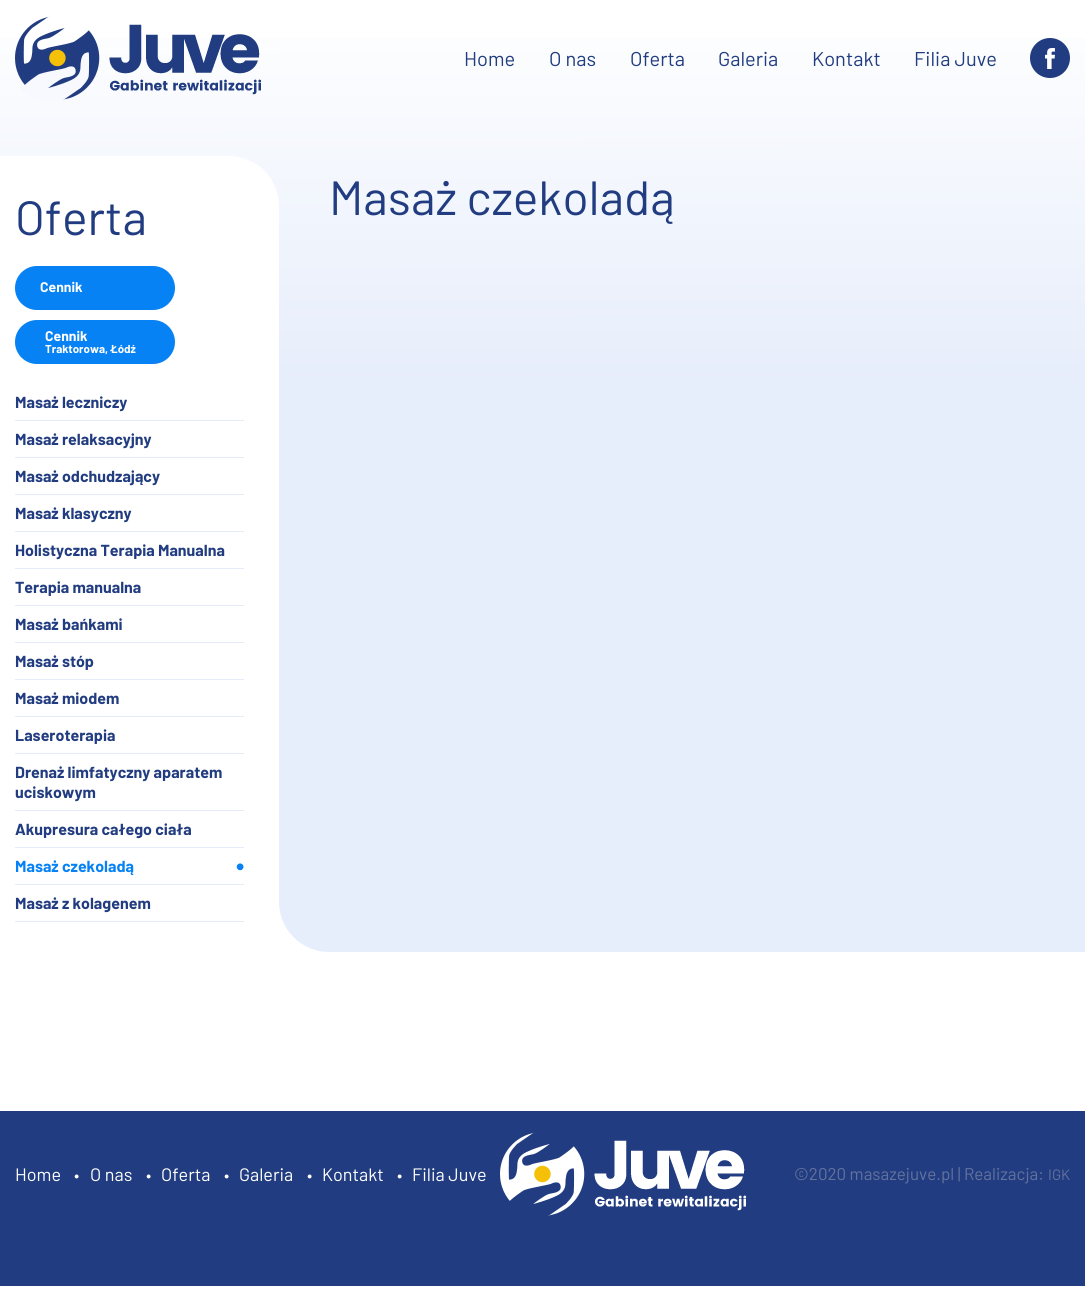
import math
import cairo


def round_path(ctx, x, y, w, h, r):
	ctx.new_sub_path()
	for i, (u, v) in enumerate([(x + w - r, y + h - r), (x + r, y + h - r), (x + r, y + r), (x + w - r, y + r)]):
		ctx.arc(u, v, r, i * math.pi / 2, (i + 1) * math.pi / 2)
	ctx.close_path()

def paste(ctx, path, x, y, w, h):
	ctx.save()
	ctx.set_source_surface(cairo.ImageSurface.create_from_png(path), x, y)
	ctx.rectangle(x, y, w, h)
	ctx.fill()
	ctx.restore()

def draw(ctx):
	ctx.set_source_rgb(1, 1, 1)
	ctx.paint()
	gradient = cairo.LinearGradient(542, 0, 543, 1286)
	gradient.add_color_stop_rgba(0, 1, 1, 1, 1)
	gradient.add_color_stop_rgba(0.3, 0.902, 0.929, 0.984, 1)
	ctx.set_source(gradient)
	ctx.rectangle(0, 38, 1085, 914)
	ctx.fill()
	paste(ctx, 'media/1.png', 15, 16, 247, 84)
	ctx.select_font_face('Barlow')
	ctx.set_font_size(20)
	ctx.set_source_rgb(0.129, 0.235, 0.502)
	for x, y, s in [
		(464, 66, 'Home'),
		(549, 66, 'O nas'),
		(630, 66, 'Oferta'),
		(718, 66, 'Galeria'),
		(812, 66, 'Kontakt'),
		(914, 66, 'Filia Juve'),
	]:
		ctx.move_to(x, y)
		ctx.show_text(s)
	paste(ctx, 'media/2.png', 1030, 38, 40, 40)
	ctx.set_source_rgb(1, 1, 1)
	ctx.new_path()
	ctx.move_to(15, 156)
	ctx.line_to(229, 156)
	ctx.curve_to(256.5, 156, 279, 178.5, 279, 206)
	ctx.line_to(279, 952)
	ctx.line_to(15, 952)
	ctx.close_path()
	ctx.fill()
	ctx.rectangle(0, 156, 15, 796)
	ctx.fill()
	ctx.set_font_size(48)
	ctx.set_source_rgb(0.129, 0.235, 0.502)
	ctx.move_to(15, 235)
	ctx.show_text('Oferta')
	ctx.set_source_rgb(0.031, 0.51, 0.957)
	round_path(ctx, 15, 266, 160, 44, 22)
	ctx.fill()
	ctx.select_font_face('Barlow', cairo.FONT_SLANT_NORMAL, cairo.FONT_WEIGHT_BOLD)
	ctx.set_font_size(14)
	ctx.set_source_rgb(1, 1, 1)
	ctx.move_to(40, 292)
	ctx.show_text('Cennik')
	ctx.set_source_rgb(0.031, 0.51, 0.957)
	round_path(ctx, 15, 320, 160, 44, 22)
	ctx.fill()
	ctx.set_source_rgb(1, 1, 1)
	ctx.move_to(45, 341)
	ctx.show_text('Cennik')
	ctx.set_font_size(11.5)
	ctx.move_to(45, 353)
	ctx.show_text('Traktorowa, Łódź')
	ctx.set_source_rgb(0.894, 0.922, 0.988)
	ctx.rectangle(15, 420, 229, 1)
	ctx.fill()
	ctx.set_font_size(16)
	ctx.set_source_rgb(0.129, 0.235, 0.502)
	ctx.move_to(15, 408)
	ctx.show_text('Masaż leczniczy')
	ctx.set_source_rgb(0.894, 0.922, 0.988)
	ctx.rectangle(15, 457, 229, 1)
	ctx.fill()
	ctx.set_source_rgb(0.129, 0.235, 0.502)
	ctx.move_to(15, 445)
	ctx.show_text('Masaż relaksacyjny')
	ctx.set_source_rgb(0.894, 0.922, 0.988)
	ctx.rectangle(15, 494, 229, 1)
	ctx.fill()
	ctx.set_source_rgb(0.129, 0.235, 0.502)
	ctx.move_to(15, 482)
	ctx.show_text('Masaż odchudzający')
	ctx.set_source_rgb(0.894, 0.922, 0.988)
	ctx.rectangle(15, 531, 229, 1)
	ctx.fill()
	ctx.set_source_rgb(0.129, 0.235, 0.502)
	ctx.move_to(15, 519)
	ctx.show_text('Masaż klasyczny')
	ctx.set_source_rgb(0.894, 0.922, 0.988)
	ctx.rectangle(15, 568, 229, 1)
	ctx.fill()
	ctx.set_source_rgb(0.129, 0.235, 0.502)
	ctx.move_to(15, 556)
	ctx.show_text('Holistyczna Terapia Manualna')
	ctx.set_source_rgb(0.894, 0.922, 0.988)
	ctx.rectangle(15, 605, 229, 1)
	ctx.fill()
	ctx.set_source_rgb(0.129, 0.235, 0.502)
	ctx.move_to(15, 593)
	ctx.show_text('Terapia manualna')
	ctx.set_source_rgb(0.894, 0.922, 0.988)
	ctx.rectangle(15, 642, 229, 1)
	ctx.fill()
	ctx.set_source_rgb(0.129, 0.235, 0.502)
	ctx.move_to(15, 630)
	ctx.show_text('Masaż bańkami')
	ctx.set_source_rgb(0.894, 0.922, 0.988)
	ctx.rectangle(15, 679, 229, 1)
	ctx.fill()
	ctx.set_source_rgb(0.129, 0.235, 0.502)
	ctx.move_to(15, 667)
	ctx.show_text('Masaż stóp')
	ctx.set_source_rgb(0.894, 0.922, 0.988)
	ctx.rectangle(15, 716, 229, 1)
	ctx.fill()
	ctx.set_source_rgb(0.129, 0.235, 0.502)
	ctx.move_to(15, 704)
	ctx.show_text('Masaż miodem')
	ctx.set_source_rgb(0.894, 0.922, 0.988)
	ctx.rectangle(15, 753, 229, 1)
	ctx.fill()
	ctx.set_source_rgb(0.129, 0.235, 0.502)
	ctx.move_to(15, 741)
	ctx.show_text('Laseroterapia')
	ctx.set_source_rgb(0.894, 0.922, 0.988)
	ctx.rectangle(15, 810, 229, 1)
	ctx.fill()
	ctx.set_source_rgb(0.129, 0.235, 0.502)
	ctx.move_to(15, 778)
	ctx.show_text('Drenaż limfatyczny aparatem')
	ctx.move_to(15, 798)
	ctx.show_text('uciskowym')
	ctx.set_source_rgb(0.894, 0.922, 0.988)
	ctx.rectangle(15, 847, 229, 1)
	ctx.fill()
	ctx.set_source_rgb(0.129, 0.235, 0.502)
	ctx.move_to(15, 835)
	ctx.show_text('Akupresura całego ciała')
	ctx.set_source_rgb(0.894, 0.922, 0.988)
	ctx.rectangle(15, 884, 229, 1)
	ctx.fill()
	ctx.set_source_rgb(0.031, 0.51, 0.957)
	ctx.move_to(15, 872)
	ctx.show_text('Masaż czekoladą')
	ctx.set_font_size(26)
	ctx.move_to(236, 874)
	ctx.show_text('•')
	ctx.set_source_rgb(0.894, 0.922, 0.988)
	ctx.rectangle(15, 921, 229, 1)
	ctx.fill()
	ctx.set_font_size(16)
	ctx.set_source_rgb(0.129, 0.235, 0.502)
	ctx.move_to(15, 909)
	ctx.show_text('Masaż z kolagenem')
	ctx.set_source_rgb(1, 1, 1)
	ctx.rectangle(279, 902, 50, 50)
	ctx.fill()
	ctx.select_font_face('Barlow')
	ctx.set_font_size(48)
	ctx.set_source_rgb(0.129, 0.235, 0.502)
	ctx.move_to(329, 215)
	ctx.show_text('Masaż czekoladą')
	ctx.set_source_rgb(0.902, 0.929, 0.984)
	ctx.new_path()
	ctx.move_to(279, 852)
	ctx.line_to(379, 852)
	ctx.line_to(379, 952)
	ctx.line_to(329, 952)
	ctx.curve_to(301.5, 952, 279, 929.5, 279, 902)
	ctx.close_path()
	ctx.fill()
	ctx.set_source_rgb(0.129, 0.235, 0.502)
	ctx.rectangle(0, 1111, 1085, 175)
	ctx.fill()
	ctx.set_font_size(18)
	ctx.set_source_rgb(1, 1, 1)
	ctx.move_to(15, 1181)
	ctx.show_text('Home')
	ctx.set_font_size(17)
	ctx.move_to(74, 1181)
	ctx.show_text('•')
	ctx.set_font_size(18)
	ctx.move_to(90, 1181)
	ctx.show_text('O nas')
	ctx.set_font_size(17)
	ctx.move_to(146, 1181)
	ctx.show_text('•')
	ctx.set_font_size(18)
	ctx.move_to(161, 1181)
	ctx.show_text('Oferta')
	ctx.set_font_size(17)
	ctx.move_to(224, 1181)
	ctx.show_text('•')
	ctx.set_font_size(18)
	ctx.move_to(239, 1181)
	ctx.show_text('Galeria')
	ctx.set_font_size(17)
	ctx.move_to(307, 1181)
	ctx.show_text('•')
	ctx.set_font_size(18)
	ctx.move_to(322, 1181)
	ctx.show_text('Kontakt')
	ctx.set_font_size(17)
	ctx.move_to(397, 1181)
	ctx.show_text('•')
	ctx.set_font_size(18)
	ctx.move_to(412, 1181)
	ctx.show_text('Filia Juve')
	paste(ctx, 'media/3.png', 500, 1132, 247, 84)
	ctx.set_font_size(17)
	ctx.set_source_rgb(0.388, 0.451, 0.62)
	ctx.move_to(794, 1180)
	ctx.show_text('©2020 masazejuve.pl | Realizacja:')
	ctx.set_font_size(15)
	ctx.move_to(1048, 1180)
	ctx.show_text('IGK')


surface = cairo.ImageSurface(cairo.FORMAT_RGB24, 1085, 1292)
ctx = cairo.Context(surface)
options = cairo.FontOptions()
options.set_hint_metrics(cairo.HINT_METRICS_OFF)
options.set_hint_style(cairo.HINT_STYLE_NONE)
ctx.set_font_options(options)
ctx.set_miter_limit(4)
draw(ctx)
surface.write_to_png('image.png')
